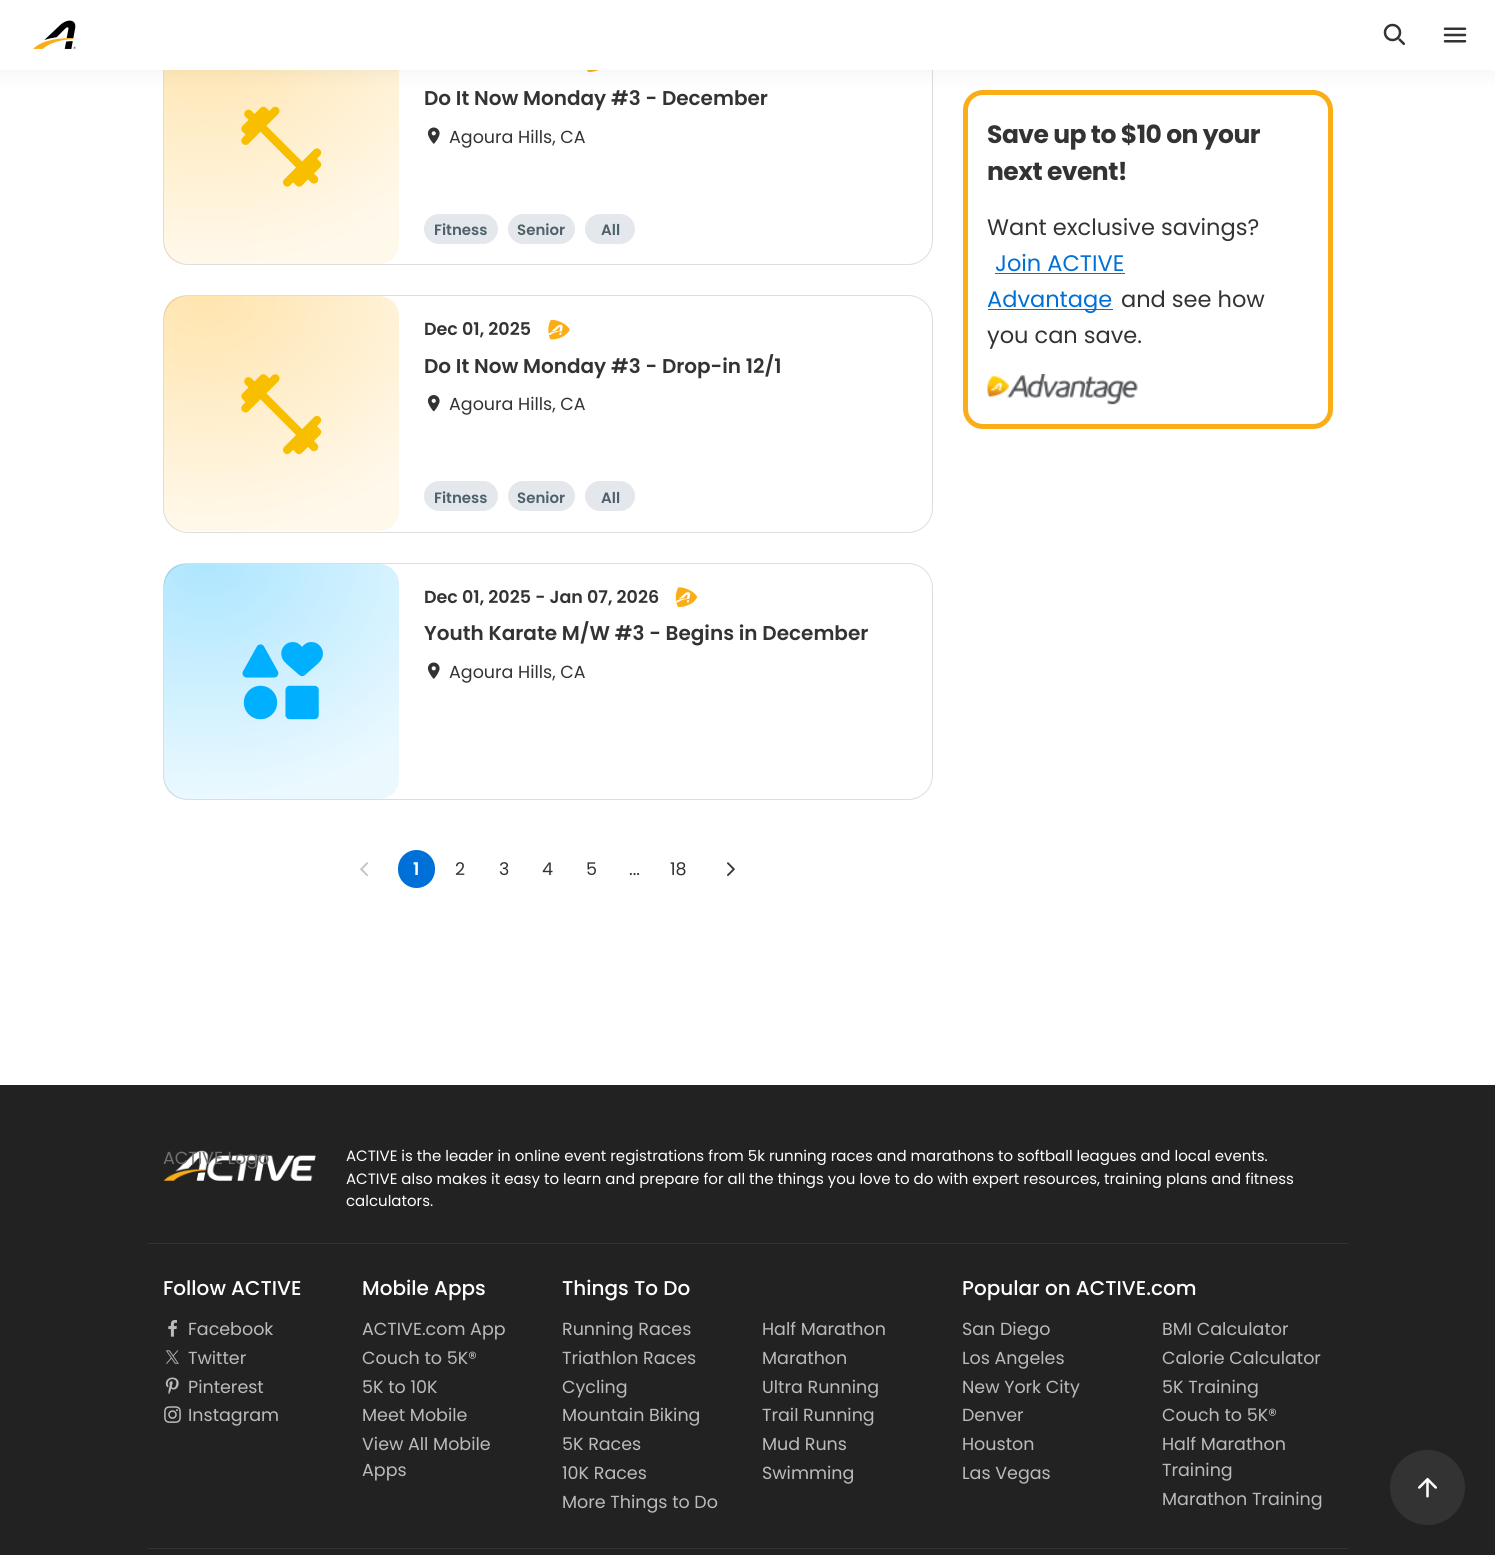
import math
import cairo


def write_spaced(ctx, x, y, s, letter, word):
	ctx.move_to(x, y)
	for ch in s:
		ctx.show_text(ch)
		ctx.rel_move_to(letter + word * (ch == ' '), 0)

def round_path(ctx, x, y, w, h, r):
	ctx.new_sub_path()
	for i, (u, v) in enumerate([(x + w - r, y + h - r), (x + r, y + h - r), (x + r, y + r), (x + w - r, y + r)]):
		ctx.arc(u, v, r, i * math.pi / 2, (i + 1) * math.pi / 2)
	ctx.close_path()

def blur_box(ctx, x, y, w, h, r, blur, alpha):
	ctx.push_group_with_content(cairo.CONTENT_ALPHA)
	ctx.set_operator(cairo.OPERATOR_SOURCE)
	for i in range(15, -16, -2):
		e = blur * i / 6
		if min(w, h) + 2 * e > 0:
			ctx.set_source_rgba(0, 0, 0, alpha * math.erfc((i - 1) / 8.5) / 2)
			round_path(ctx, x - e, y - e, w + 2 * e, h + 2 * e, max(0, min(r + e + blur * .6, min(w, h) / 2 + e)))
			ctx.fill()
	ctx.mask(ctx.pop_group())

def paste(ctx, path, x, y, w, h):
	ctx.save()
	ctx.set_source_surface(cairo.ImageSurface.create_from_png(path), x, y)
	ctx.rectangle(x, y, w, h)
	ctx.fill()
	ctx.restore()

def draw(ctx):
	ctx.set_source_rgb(1, 1, 1)
	ctx.paint()
	round_path(ctx, 163.5, 28.5, 769, 236, 24.5)
	ctx.set_source_rgb(0.867, 0.867, 0.867)
	ctx.set_line_width(1)
	ctx.stroke()
	gradient = cairo.RadialGradient(0, 0, 0, 0, 0, 1)
	gradient.set_matrix(cairo.Matrix(1 / 289, 0, 0, 1 / 235, -1 * 206 / 289, -1 * 29 / 235))
	gradient.add_color_stop_rgba(0, 1, 0.671, 0, 0.32)
	gradient.add_color_stop_rgba(1, 1, 0.671, 0, 0.08)
	ctx.set_source(gradient)
	round_path(ctx, 164, 29, 235, 235, 20)
	ctx.fill()
	paste(ctx, 'media/5.png', 587, 70, 12, 2)
	round_path(ctx, 965.5, 92.5, 365, 334, 17.5)
	ctx.set_source_rgb(0.984, 0.678, 0.094)
	ctx.set_line_width(5)
	ctx.stroke()
	ctx.set_source_rgb(0, 0, 0)
	blur_box(ctx, 0, 3, 1495, 70, 0, 10, 0.05)
	ctx.set_source_rgb(1, 1, 1)
	ctx.rectangle(0, 0, 1495, 70)
	ctx.fill()
	paste(ctx, 'media/1.png', 33, 20, 43, 29)
	paste(ctx, 'media/2.png', 1383, 23, 23, 23)
	paste(ctx, 'media/3.png', 1443, 27, 24, 16)
	paste(ctx, 'media/4.png', 241, 106, 81, 81)
	ctx.select_font_face('Poppins SemiBold')
	ctx.set_font_size(20)
	ctx.set_source_rgb(0.2, 0.2, 0.2)
	ctx.move_to(424, 105)
	ctx.show_text('Do It Now Monday #3 - December')
	paste(ctx, 'media/6.png', 427, 127, 13, 17)
	ctx.select_font_face('Poppins')
	ctx.set_font_size(17.5)
	ctx.move_to(449, 143)
	ctx.show_text('Agoura Hills, CA')
	ctx.set_source_rgb(0.894, 0.91, 0.922)
	round_path(ctx, 424, 214, 74, 30, 15)
	ctx.fill()
	ctx.select_font_face('Poppins SemiBold')
	ctx.set_font_size(15)
	ctx.set_source_rgb(0.306, 0.376, 0.416)
	ctx.move_to(434, 235)
	ctx.show_text('Fitness')
	ctx.set_source_rgb(0.894, 0.91, 0.922)
	round_path(ctx, 508, 214, 67, 30, 15)
	ctx.fill()
	ctx.set_source_rgb(0.306, 0.376, 0.416)
	ctx.move_to(517, 235)
	ctx.show_text('Senior')
	ctx.set_source_rgb(0.894, 0.91, 0.922)
	round_path(ctx, 585, 214, 50, 30, 15)
	ctx.fill()
	ctx.set_source_rgb(0.306, 0.376, 0.416)
	ctx.move_to(601, 235)
	ctx.show_text('All')
	round_path(ctx, 163.5, 295.5, 769, 237, 24.5)
	ctx.set_source_rgb(0.867, 0.867, 0.867)
	ctx.set_line_width(1)
	ctx.stroke()
	gradient = cairo.RadialGradient(0, 0, 0, 0, 0, 1)
	gradient.set_matrix(cairo.Matrix(1 / 289, 0, 0, 1 / 235, -1 * 206 / 289, -1 * 296 / 235))
	gradient.add_color_stop_rgba(0, 1, 0.671, 0, 0.32)
	gradient.add_color_stop_rgba(1, 1, 0.671, 0, 0.08)
	ctx.set_source(gradient)
	round_path(ctx, 164, 296, 235, 235, 20)
	ctx.fill()
	paste(ctx, 'media/7.png', 241, 374, 81, 81)
	ctx.set_font_size(17.5)
	ctx.set_source_rgb(0.2, 0.2, 0.2)
	ctx.move_to(424, 335)
	ctx.show_text('Dec 01, 2025')
	paste(ctx, 'media/8.png', 548, 319, 22, 21)
	ctx.set_font_size(20)
	ctx.move_to(424, 373)
	ctx.show_text('Do It Now Monday #3 - Drop-in 12/1')
	paste(ctx, 'media/9.png', 427, 395, 13, 17)
	ctx.select_font_face('Poppins')
	ctx.set_font_size(17.5)
	ctx.move_to(449, 410)
	ctx.show_text('Agoura Hills, CA')
	ctx.set_source_rgb(0.894, 0.91, 0.922)
	round_path(ctx, 424, 481, 74, 30, 15)
	ctx.fill()
	ctx.select_font_face('Poppins SemiBold')
	ctx.set_font_size(15)
	ctx.set_source_rgb(0.306, 0.376, 0.416)
	ctx.move_to(434, 503)
	ctx.show_text('Fitness')
	ctx.set_source_rgb(0.894, 0.91, 0.922)
	round_path(ctx, 508, 481, 67, 30, 15)
	ctx.fill()
	ctx.set_source_rgb(0.306, 0.376, 0.416)
	ctx.move_to(517, 503)
	ctx.show_text('Senior')
	ctx.set_source_rgb(0.894, 0.91, 0.922)
	round_path(ctx, 585, 481, 50, 30, 15)
	ctx.fill()
	ctx.set_source_rgb(0.306, 0.376, 0.416)
	ctx.move_to(601, 503)
	ctx.show_text('All')
	round_path(ctx, 163.5, 563.5, 769, 236, 24.5)
	ctx.set_source_rgb(0.867, 0.867, 0.867)
	ctx.stroke()
	gradient = cairo.RadialGradient(0, 0, 0, 0, 0, 1)
	gradient.set_matrix(cairo.Matrix(1 / 289, 0, 0, 1 / 235, -1 * 206 / 289, -1 * 564 / 235))
	gradient.add_color_stop_rgba(0, 0, 0.69, 1, 0.32)
	gradient.add_color_stop_rgba(1, 0, 0.69, 1, 0.08)
	ctx.set_source(gradient)
	round_path(ctx, 164, 564, 235, 235, 20)
	ctx.fill()
	paste(ctx, 'media/10.png', 242, 642, 81, 78)
	ctx.set_font_size(17.5)
	ctx.set_source_rgb(0.2, 0.2, 0.2)
	ctx.move_to(424, 603)
	ctx.show_text('Dec 01, 2025 - Jan 07, 2026')
	paste(ctx, 'media/11.png', 675, 587, 23, 20)
	ctx.set_font_size(20)
	ctx.move_to(424, 640)
	ctx.show_text('Youth Karate M/W #3 - Begins in December')
	paste(ctx, 'media/6.png', 427, 662, 13, 17)
	ctx.select_font_face('Poppins')
	ctx.set_font_size(17.5)
	ctx.move_to(449, 678)
	ctx.show_text('Agoura Hills, CA')
	paste(ctx, 'media/12.png', 360, 862, 8, 14)
	ctx.set_source_rgb(0, 0.439, 0.851)
	round_path(ctx, 398, 850, 37, 38, 18.5)
	ctx.fill()
	ctx.select_font_face('Poppins SemiBold')
	ctx.set_source_rgb(1, 1, 1)
	ctx.move_to(413, 875)
	ctx.show_text('1')
	ctx.select_font_face('Poppins')
	ctx.set_source_rgb(0.2, 0.2, 0.2)
	for x, y, s in [
		(455, 875, '2'),
		(499, 875, '3'),
		(542, 875, '4'),
		(586, 875, '5'),
		(629, 875, '...'),
		(670, 875, '18'),
	]:
		ctx.move_to(x, y)
		ctx.show_text(s)
	paste(ctx, 'media/13.png', 727, 862, 8, 14)
	ctx.select_font_face('Poppins', cairo.FONT_SLANT_NORMAL, cairo.FONT_WEIGHT_BOLD)
	ctx.set_font_size(25)
	write_spaced(ctx, 987, 143, 'Save up to $10 on your', -0.5, 0)
	write_spaced(ctx, 987, 180, 'next event!', -0.5, 0)
	ctx.select_font_face('Poppins')
	ctx.set_font_size(22.5)
	ctx.move_to(987, 235)
	ctx.show_text('Want exclusive savings?')
	ctx.set_source_rgb(0, 0.439, 0.851)
	ctx.move_to(995, 271)
	ctx.show_text('Join ACTIVE')
	ctx.rectangle(995, 273, 130, 1)
	ctx.fill()
	ctx.rectangle(988, 309, 125, 1)
	ctx.fill()
	ctx.move_to(987, 307)
	ctx.show_text('Advantage')
	ctx.set_source_rgb(0.2, 0.2, 0.2)
	ctx.move_to(1121, 307)
	ctx.show_text('and see how')
	ctx.move_to(987, 343)
	ctx.show_text('you can save.')
	paste(ctx, 'media/14.png', 987, 374, 151, 31)
	ctx.set_source_rgb(0.133, 0.133, 0.133)
	ctx.rectangle(0, 1085, 1495, 470)
	ctx.fill()
	paste(ctx, 'media/15.png', 163, 1150, 153, 32)
	ctx.set_font_size(17.5)
	ctx.set_source_rgb(0.439, 0.439, 0.439)
	ctx.move_to(163, 1164)
	ctx.show_text('ACTIVE Logo')
	ctx.set_font_size(15)
	ctx.set_source_rgb(1, 1, 1)
	for x, y, s in [
		(346, 1161, 'ACTIVE is the leader in online event registrations from 5k running races and marathons to softball leagues and local events.'),
		(346, 1184, 'ACTIVE also makes it easy to learn and prepare for all the things you love to do with expert resources, training plans and fitness'),
		(346, 1206, 'calculators.'),
	]:
		ctx.move_to(x, y)
		ctx.show_text(s)
	ctx.set_source_rgb(0.2, 0.2, 0.2)
	ctx.rectangle(148, 1243, 1200, 1)
	ctx.fill()
	ctx.select_font_face('Poppins Medium')
	ctx.set_font_size(20)
	ctx.set_source_rgb(1, 1, 1)
	ctx.move_to(163, 1295)
	ctx.show_text('Follow ACTIVE')
	paste(ctx, 'media/16.png', 168, 1320, 9, 17)
	ctx.select_font_face('Poppins')
	ctx.set_font_size(17.5)
	ctx.set_source_rgb(0.733, 0.733, 0.733)
	ctx.move_to(188, 1335)
	ctx.show_text('Facebook')
	paste(ctx, 'media/17.png', 166, 1350, 13, 14)
	ctx.move_to(188, 1364)
	ctx.show_text('Twitter')
	paste(ctx, 'media/18.png', 165, 1377, 14, 18)
	ctx.move_to(188, 1393)
	ctx.show_text('Pinterest')
	paste(ctx, 'media/19.png', 164, 1406, 17, 17)
	ctx.move_to(188, 1421)
	ctx.show_text('Instagram')
	ctx.select_font_face('Poppins Medium')
	ctx.set_font_size(20)
	ctx.set_source_rgb(1, 1, 1)
	ctx.move_to(362, 1295)
	ctx.show_text('Mobile Apps')
	ctx.select_font_face('Poppins')
	ctx.set_font_size(17.5)
	ctx.set_source_rgb(0.733, 0.733, 0.733)
	for x, y, s in [
		(362, 1335, 'ACTIVE.com App'),
		(362, 1364, 'Couch to 5K®'),
		(362, 1393, '5K to 10K'),
		(362, 1421, 'Meet Mobile'),
		(362, 1450, 'View All Mobile'),
		(362, 1476, 'Apps'),
	]:
		ctx.move_to(x, y)
		ctx.show_text(s)
	ctx.select_font_face('Poppins Medium')
	ctx.set_font_size(20)
	ctx.set_source_rgb(1, 1, 1)
	ctx.move_to(562, 1295)
	ctx.show_text('Things To Do')
	ctx.select_font_face('Poppins')
	ctx.set_font_size(17.5)
	ctx.set_source_rgb(0.733, 0.733, 0.733)
	for x, y, s in [
		(562, 1335, 'Running Races'),
		(562, 1364, 'Triathlon Races'),
		(562, 1393, 'Cycling'),
		(562, 1421, 'Mountain Biking'),
		(562, 1450, '5K Races'),
		(562, 1479, '10K Races'),
		(562, 1508, 'More Things to Do'),
		(762, 1335, 'Half Marathon'),
		(762, 1364, 'Marathon'),
		(762, 1393, 'Ultra Running'),
		(762, 1421, 'Trail Running'),
		(762, 1450, 'Mud Runs'),
		(762, 1479, 'Swimming'),
	]:
		ctx.move_to(x, y)
		ctx.show_text(s)
	ctx.select_font_face('Poppins Medium')
	ctx.set_font_size(20)
	ctx.set_source_rgb(1, 1, 1)
	ctx.move_to(962, 1295)
	ctx.show_text('Popular on ACTIVE.com')
	ctx.select_font_face('Poppins')
	ctx.set_font_size(17.5)
	ctx.set_source_rgb(0.733, 0.733, 0.733)
	for x, y, s in [
		(962, 1335, 'San Diego'),
		(962, 1364, 'Los Angeles'),
		(962, 1393, 'New York City'),
		(962, 1421, 'Denver'),
		(962, 1450, 'Houston'),
		(962, 1479, 'Las Vegas'),
		(1162, 1335, 'BMI Calculator'),
		(1162, 1364, 'Calorie Calculator'),
		(1162, 1393, '5K Training'),
		(1162, 1421, 'Couch to 5K®'),
		(1162, 1450, 'Half Marathon'),
		(1162, 1476, 'Training'),
		(1162, 1505, 'Marathon Training'),
	]:
		ctx.move_to(x, y)
		ctx.show_text(s)
	ctx.set_source_rgb(0.2, 0.2, 0.2)
	ctx.rectangle(148, 1548, 1200, 1)
	ctx.fill()
	ctx.arc(1427.5, 1487.5, 37.5, 0, 2 * math.pi)
	ctx.fill()
	paste(ctx, 'media/20.png', 1418, 1477, 19, 21)


surface = cairo.ImageSurface(cairo.FORMAT_RGB24, 1495, 1555)
ctx = cairo.Context(surface)
options = cairo.FontOptions()
options.set_hint_metrics(cairo.HINT_METRICS_OFF)
options.set_hint_style(cairo.HINT_STYLE_NONE)
ctx.set_font_options(options)
ctx.set_miter_limit(4)
draw(ctx)
surface.write_to_png('image.png')
